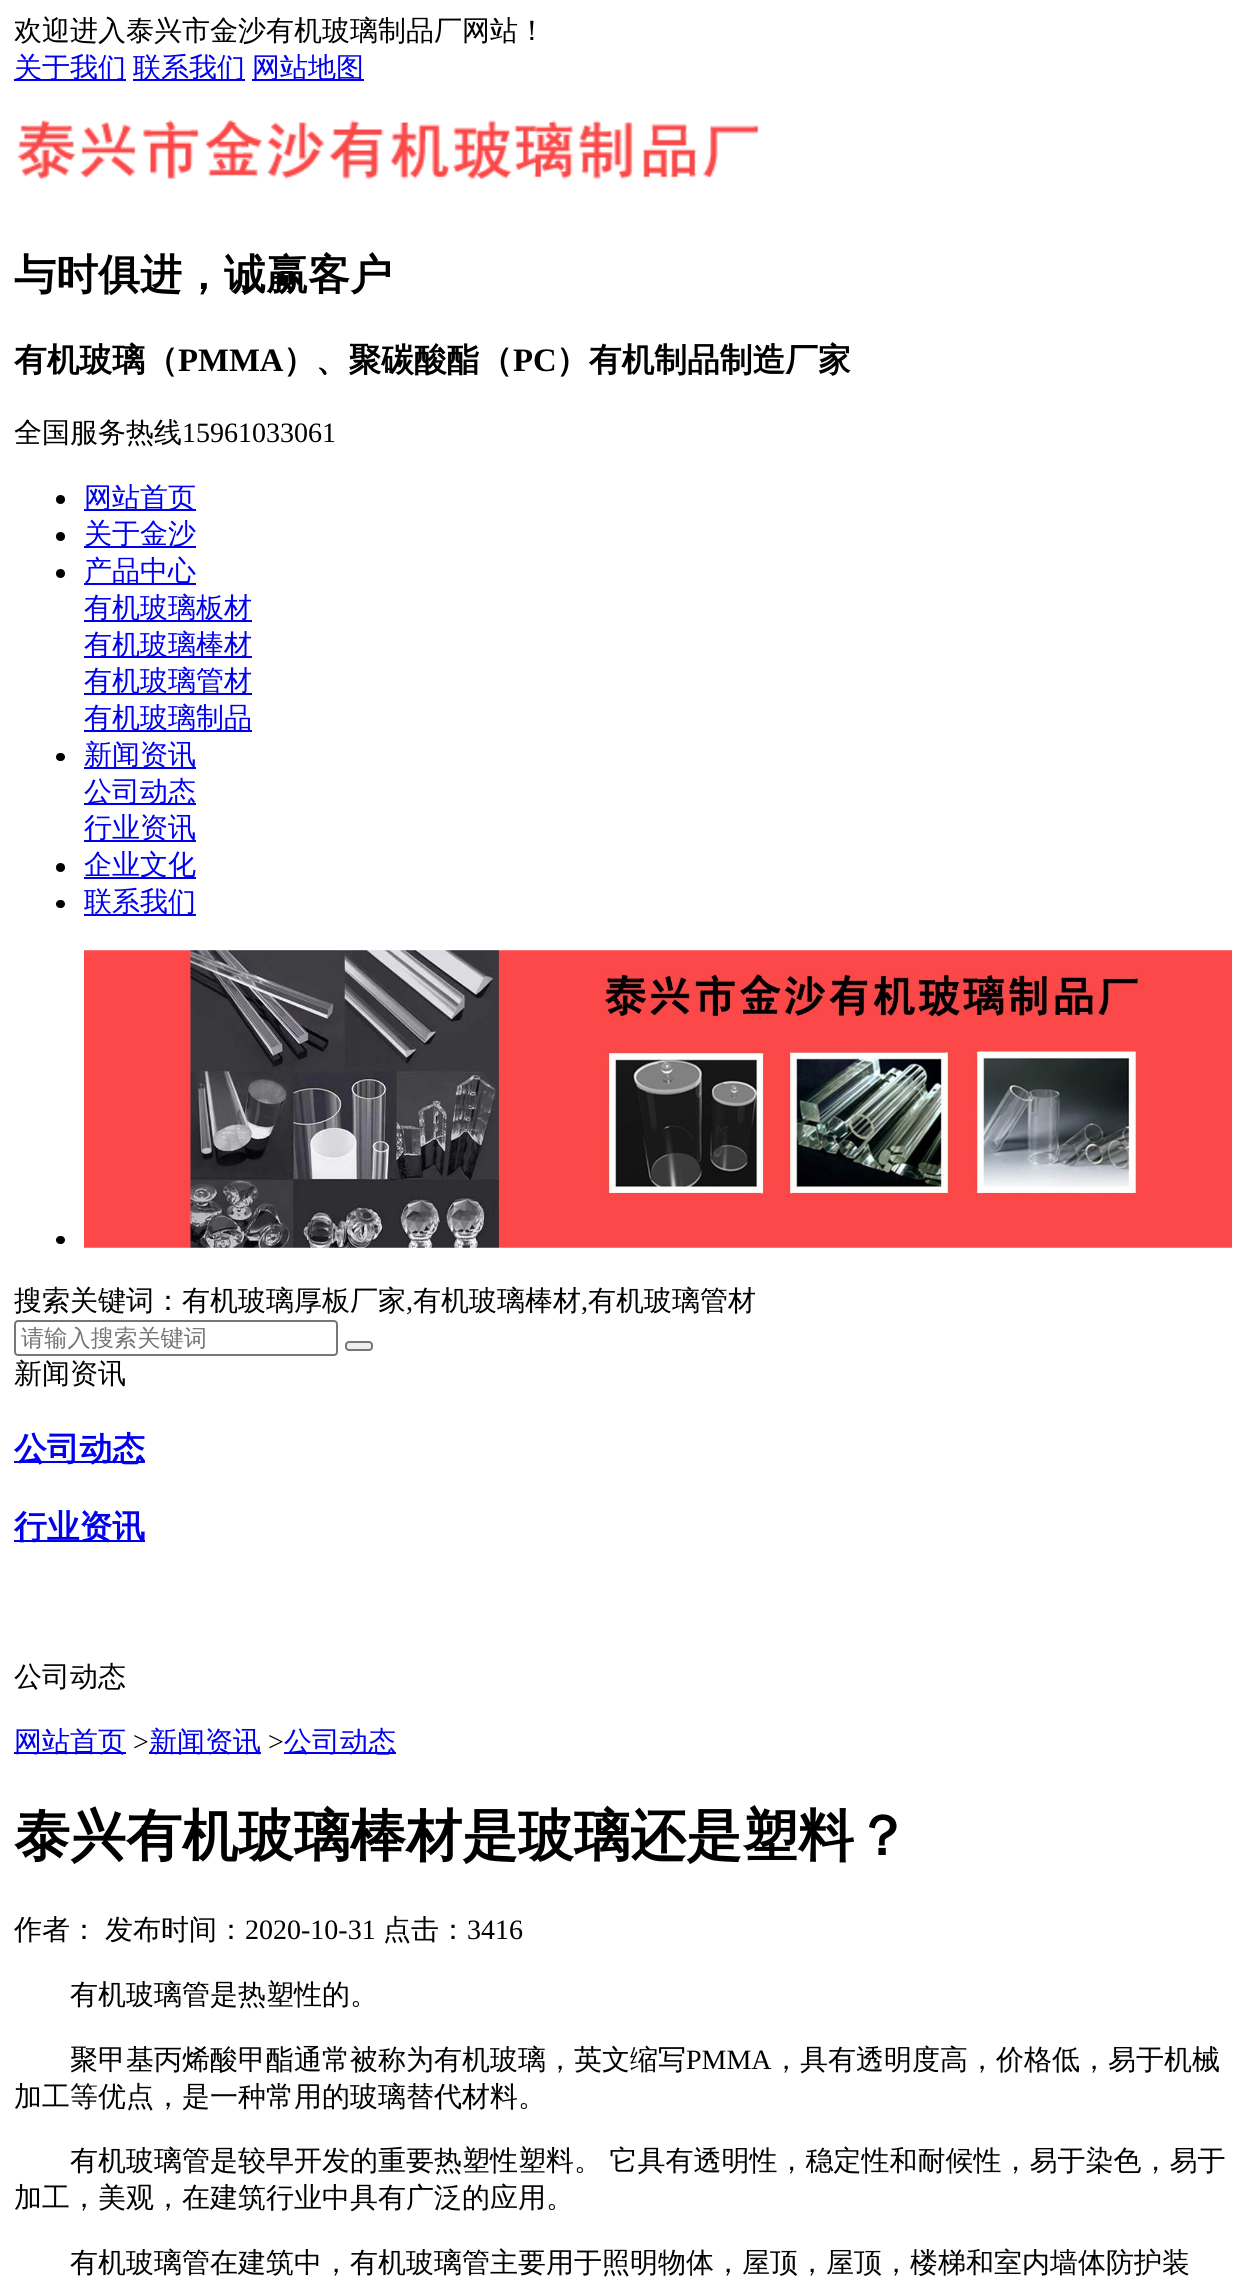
import math
import cairo


def write_spaced(ctx, x, y, s, letter, word):
	ctx.move_to(x, y)
	for ch in s:
		ctx.show_text(ch)
		ctx.rel_move_to(letter + word * (ch == ' '), 0)

def round_path(ctx, x, y, w, h, r):
	ctx.new_sub_path()
	for i, (u, v) in enumerate([(x + w - r, y + h - r), (x + r, y + h - r), (x + r, y + r), (x + w - r, y + r)]):
		ctx.arc(u, v, r, i * math.pi / 2, (i + 1) * math.pi / 2)
	ctx.close_path()

def paste(ctx, path, x, y, w, h):
	ctx.save()
	ctx.set_source_surface(cairo.ImageSurface.create_from_png(path), x, y)
	ctx.rectangle(x, y, w, h)
	ctx.fill()
	ctx.restore()

def draw(ctx):
	ctx.set_source_rgb(1, 1, 1)
	ctx.paint()
	ctx.select_font_face('WenQuanYi Zen Hei Medium')
	ctx.set_font_size(28)
	ctx.set_source_rgb(0, 0, 0)
	ctx.move_to(14, 40)
	ctx.show_text('欢迎进入泰兴市金沙有机玻璃制品厂网站！')
	ctx.set_source_rgb(0, 0, 0.933)
	ctx.rectangle(14, 79, 112, 2)
	ctx.fill()
	ctx.move_to(14, 77)
	ctx.show_text('关于我们')
	ctx.rectangle(133, 79, 112, 2)
	ctx.fill()
	ctx.move_to(133, 77)
	ctx.show_text('联系我们')
	ctx.rectangle(252, 79, 112, 2)
	ctx.fill()
	ctx.move_to(252, 77)
	ctx.show_text('网站地图')
	paste(ctx, 'media/1.png', 17, 119, 742, 60)
	ctx.select_font_face('WenQuanYi Zen Hei', cairo.FONT_SLANT_NORMAL, cairo.FONT_WEIGHT_BOLD)
	ctx.set_font_size(42)
	ctx.set_source_rgb(0, 0, 0)
	ctx.move_to(14, 289)
	ctx.show_text('与时俱进，诚赢客户')
	ctx.set_font_size(32.75)
	ctx.move_to(14, 371)
	ctx.show_text('有机玻璃（')
	ctx.select_font_face('Liberation Serif', cairo.FONT_SLANT_NORMAL, cairo.FONT_WEIGHT_BOLD)
	ctx.move_to(178, 371)
	ctx.show_text('PMMA')
	ctx.select_font_face('WenQuanYi Zen Hei', cairo.FONT_SLANT_NORMAL, cairo.FONT_WEIGHT_BOLD)
	ctx.move_to(283, 371)
	ctx.show_text('）、聚碳酸酯（')
	ctx.select_font_face('Liberation Serif', cairo.FONT_SLANT_NORMAL, cairo.FONT_WEIGHT_BOLD)
	ctx.move_to(513, 371)
	ctx.show_text('PC')
	ctx.select_font_face('WenQuanYi Zen Hei', cairo.FONT_SLANT_NORMAL, cairo.FONT_WEIGHT_BOLD)
	ctx.move_to(556, 371)
	ctx.show_text('）有机制品制造厂家')
	ctx.select_font_face('WenQuanYi Zen Hei Medium')
	ctx.set_font_size(28)
	ctx.move_to(14, 442)
	ctx.show_text('全国服务热线')
	ctx.select_font_face('Liberation Serif')
	ctx.move_to(182, 442)
	ctx.show_text('15961033061')
	ctx.new_path()
	ctx.arc(60.5, 499.5, 4.5, 0, 2 * math.pi)
	ctx.fill()
	ctx.set_source_rgb(0, 0, 0.933)
	ctx.rectangle(84, 509, 112, 2)
	ctx.fill()
	ctx.select_font_face('WenQuanYi Zen Hei Medium')
	ctx.move_to(84, 507)
	ctx.show_text('网站首页')
	ctx.set_source_rgb(0, 0, 0)
	ctx.new_path()
	ctx.arc(60.5, 536.5, 4.5, 0, 2 * math.pi)
	ctx.fill()
	ctx.set_source_rgb(0, 0, 0.933)
	ctx.rectangle(84, 546, 112, 2)
	ctx.fill()
	ctx.move_to(84, 543)
	ctx.show_text('关于金沙')
	ctx.set_source_rgb(0, 0, 0)
	ctx.new_path()
	ctx.arc(60.5, 573.5, 4.5, 0, 2 * math.pi)
	ctx.fill()
	ctx.set_source_rgb(0, 0, 0.933)
	ctx.rectangle(84, 583, 112, 2)
	ctx.fill()
	ctx.move_to(84, 580)
	ctx.show_text('产品中心')
	ctx.rectangle(84, 620, 168, 2)
	ctx.fill()
	ctx.move_to(84, 617)
	ctx.show_text('有机玻璃板材')
	ctx.rectangle(84, 656, 168, 2)
	ctx.fill()
	ctx.move_to(84, 654)
	ctx.show_text('有机玻璃棒材')
	ctx.rectangle(84, 693, 168, 2)
	ctx.fill()
	ctx.move_to(84, 690)
	ctx.show_text('有机玻璃管材')
	ctx.rectangle(84, 730, 168, 2)
	ctx.fill()
	ctx.move_to(84, 727)
	ctx.show_text('有机玻璃制品')
	ctx.set_source_rgb(0, 0, 0)
	round_path(ctx, 56, 753, 9, 8, 4)
	ctx.fill()
	ctx.set_source_rgb(0, 0, 0.933)
	ctx.rectangle(84, 767, 112, 2)
	ctx.fill()
	ctx.move_to(84, 764)
	ctx.show_text('新闻资讯')
	ctx.rectangle(84, 803, 112, 2)
	ctx.fill()
	ctx.move_to(84, 801)
	ctx.show_text('公司动态')
	ctx.rectangle(84, 840, 112, 2)
	ctx.fill()
	ctx.move_to(84, 837)
	ctx.show_text('行业资讯')
	ctx.set_source_rgb(0, 0, 0)
	ctx.new_path()
	ctx.arc(60.5, 867.5, 4.5, 0, 2 * math.pi)
	ctx.fill()
	ctx.set_source_rgb(0, 0, 0.933)
	ctx.rectangle(84, 877, 112, 2)
	ctx.fill()
	ctx.move_to(84, 874)
	ctx.show_text('企业文化')
	ctx.set_source_rgb(0, 0, 0)
	round_path(ctx, 56, 900, 9, 8, 4)
	ctx.fill()
	ctx.set_source_rgb(0, 0, 0.933)
	ctx.rectangle(84, 914, 112, 2)
	ctx.fill()
	ctx.move_to(84, 911)
	ctx.show_text('联系我们')
	ctx.set_source_rgb(0, 0, 0)
	round_path(ctx, 56, 1236, 9, 8, 4)
	ctx.fill()
	paste(ctx, 'media/2.png', 84, 950, 1148, 298)
	ctx.move_to(14, 1310)
	ctx.show_text('搜索关键词：有机玻璃厚板厂家')
	ctx.select_font_face('Liberation Serif')
	ctx.move_to(406, 1310)
	ctx.show_text(',')
	ctx.select_font_face('WenQuanYi Zen Hei Medium')
	ctx.move_to(413, 1310)
	ctx.show_text('有机玻璃棒材')
	ctx.select_font_face('Liberation Serif')
	ctx.move_to(581, 1310)
	ctx.show_text(',')
	ctx.select_font_face('WenQuanYi Zen Hei Medium')
	ctx.move_to(588, 1310)
	ctx.show_text('有机玻璃管材')
	round_path(ctx, 15, 1321, 322, 34, 3)
	ctx.set_source_rgb(0.463, 0.463, 0.463)
	ctx.stroke()
	ctx.set_font_size(23.25)
	ctx.set_source_rgb(0.459, 0.459, 0.459)
	ctx.move_to(21, 1346)
	ctx.show_text('请输入搜索关键词')
	ctx.set_source_rgb(0.937, 0.937, 0.937)
	round_path(ctx, 346, 1342, 26, 8, 3)
	ctx.fill_preserve()
	ctx.set_source_rgb(0.463, 0.463, 0.463)
	ctx.stroke()
	ctx.set_font_size(28)
	ctx.set_source_rgb(0, 0, 0)
	ctx.move_to(14, 1383)
	ctx.show_text('新闻资讯')
	ctx.set_source_rgb(0, 0, 0.933)
	ctx.rectangle(14, 1461, 131, 2)
	ctx.fill()
	ctx.select_font_face('WenQuanYi Zen Hei', cairo.FONT_SLANT_NORMAL, cairo.FONT_WEIGHT_BOLD)
	ctx.set_font_size(32.75)
	ctx.move_to(14, 1460)
	ctx.show_text('公司动态')
	ctx.rectangle(14, 1540, 131, 2)
	ctx.fill()
	ctx.move_to(14, 1538)
	ctx.show_text('行业资讯')
	ctx.select_font_face('WenQuanYi Zen Hei Medium')
	ctx.set_font_size(28)
	ctx.set_source_rgb(0, 0, 0)
	ctx.move_to(14, 1686)
	ctx.show_text('公司动态')
	ctx.set_source_rgb(0, 0, 0.933)
	ctx.rectangle(14, 1752, 112, 2)
	ctx.fill()
	ctx.move_to(14, 1751)
	ctx.show_text('网站首页')
	ctx.select_font_face('Liberation Serif')
	ctx.set_source_rgb(0, 0, 0)
	ctx.move_to(133, 1751)
	ctx.show_text('>')
	ctx.set_source_rgb(0, 0, 0.933)
	ctx.rectangle(149, 1752, 112, 2)
	ctx.fill()
	ctx.select_font_face('WenQuanYi Zen Hei Medium')
	ctx.move_to(149, 1751)
	ctx.show_text('新闻资讯')
	ctx.select_font_face('Liberation Serif')
	ctx.set_source_rgb(0, 0, 0)
	ctx.move_to(268, 1751)
	ctx.show_text('>')
	ctx.set_source_rgb(0, 0, 0.933)
	ctx.rectangle(284, 1752, 112, 2)
	ctx.fill()
	ctx.select_font_face('WenQuanYi Zen Hei Medium')
	ctx.move_to(284, 1751)
	ctx.show_text('公司动态')
	ctx.select_font_face('WenQuanYi Zen Hei', cairo.FONT_SLANT_NORMAL, cairo.FONT_WEIGHT_BOLD)
	ctx.set_font_size(56)
	ctx.set_source_rgb(0, 0, 0)
	ctx.move_to(14, 1855)
	ctx.show_text('泰兴有机玻璃棒材是玻璃还是塑料？')
	ctx.select_font_face('WenQuanYi Zen Hei Medium')
	ctx.set_font_size(28)
	ctx.move_to(14, 1939)
	ctx.show_text('作者：')
	ctx.move_to(105, 1939)
	ctx.show_text('发布时间：')
	ctx.select_font_face('Liberation Serif')
	ctx.move_to(245, 1939)
	ctx.show_text('2020-10-31')
	ctx.select_font_face('WenQuanYi Zen Hei Medium')
	ctx.move_to(383, 1939)
	ctx.show_text('点击：')
	ctx.select_font_face('Liberation Serif')
	ctx.move_to(467, 1939)
	ctx.show_text('3416')
	ctx.select_font_face('WenQuanYi Zen Hei Medium')
	ctx.move_to(70, 2004)
	ctx.show_text('有机玻璃管是热塑性的。')
	ctx.move_to(70, 2069)
	ctx.show_text('聚甲基丙烯酸甲酯通常被称为有机玻璃，英文缩写')
	ctx.select_font_face('Liberation Serif')
	ctx.move_to(686, 2069)
	ctx.show_text('PMMA')
	ctx.select_font_face('WenQuanYi Zen Hei Medium')
	ctx.move_to(772, 2069)
	ctx.show_text('，具有透明度高，价格低，易于机械')
	ctx.move_to(14, 2106)
	ctx.show_text('加工等优点，是一种常用的玻璃替代材料。')
	write_spaced(ctx, 70, 2170, '有机玻璃管是较早开发的重要热塑性塑料。 它具有透明性，稳定性和耐候性，易于染色，易于', 0, -1)
	ctx.move_to(14, 2207)
	ctx.show_text('加工，美观，在建筑行业中具有广泛的应用。')
	ctx.move_to(70, 2272)
	ctx.show_text('有机玻璃管在建筑中，有机玻璃管主要用于照明物体，屋顶，屋顶，楼梯和室内墙体防护装')


surface = cairo.ImageSurface(cairo.FORMAT_RGB24, 1246, 2283)
ctx = cairo.Context(surface)
options = cairo.FontOptions()
options.set_hint_metrics(cairo.HINT_METRICS_OFF)
options.set_hint_style(cairo.HINT_STYLE_NONE)
ctx.set_font_options(options)
ctx.set_miter_limit(4)
draw(ctx)
surface.write_to_png('image.png')
